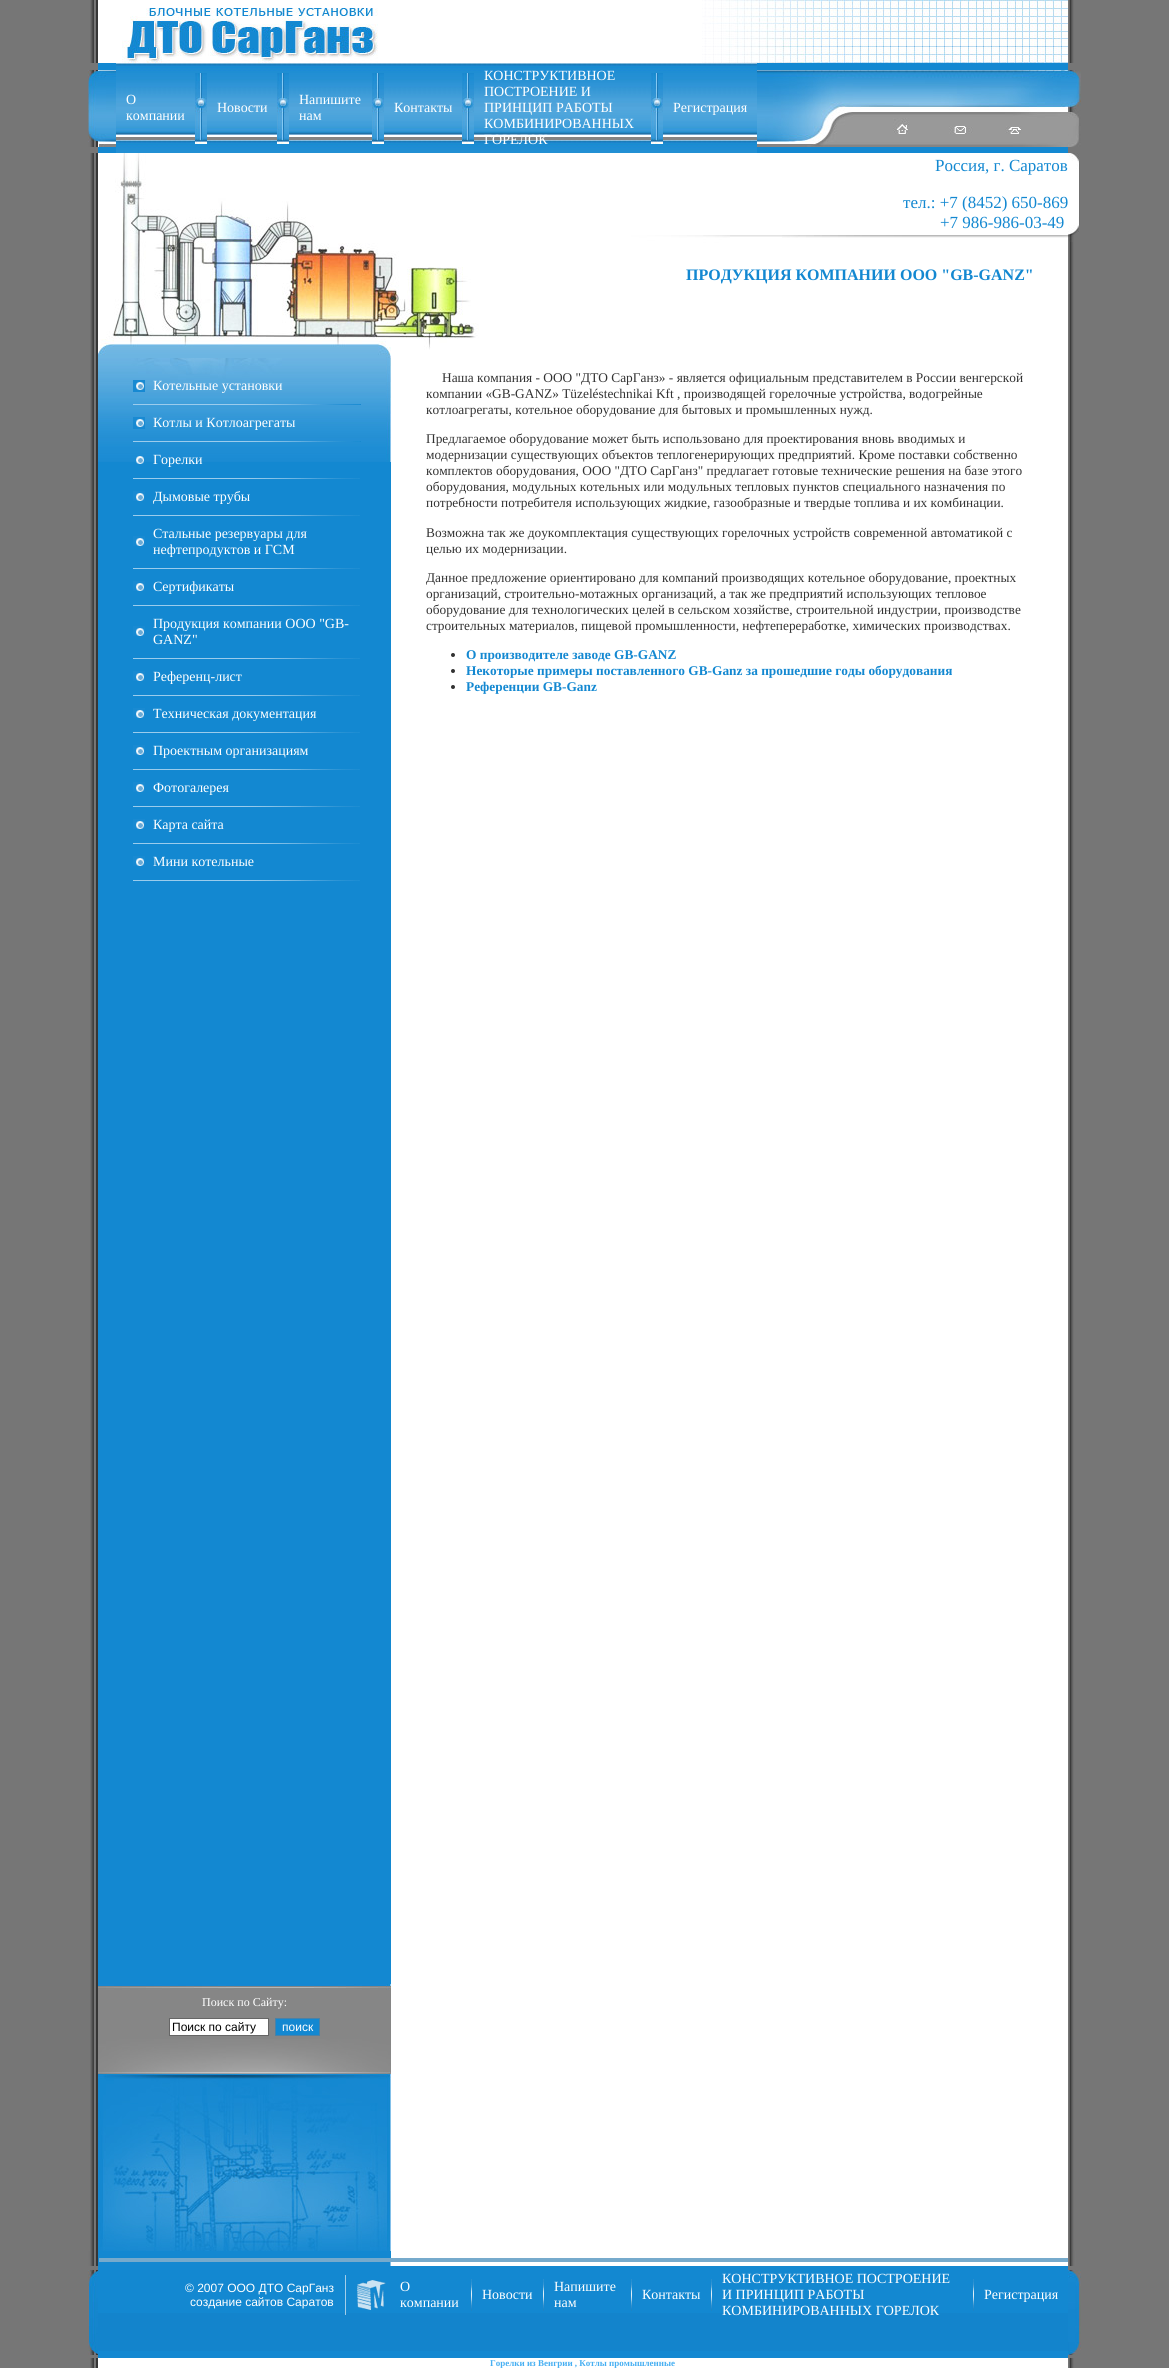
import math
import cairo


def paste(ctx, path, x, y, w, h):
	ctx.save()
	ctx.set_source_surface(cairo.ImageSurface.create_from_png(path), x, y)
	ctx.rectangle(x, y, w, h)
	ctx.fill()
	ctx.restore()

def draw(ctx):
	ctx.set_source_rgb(0.463, 0.463, 0.463)
	ctx.paint()
	paste(ctx, 'media/1.png', 90, 0, 8, 63)
	ctx.set_source_rgb(1, 1, 1)
	ctx.rectangle(98, 0, 604, 63)
	ctx.fill()
	paste(ctx, 'media/2.png', 702, 0, 366, 63)
	paste(ctx, 'media/3.png', 122, 8, 256, 55)
	paste(ctx, 'media/4.png', 1069, 0, 5, 63)
	paste(ctx, 'media/5.png', 88, 70, 10, 77)
	ctx.set_source_rgb(0.078, 0.533, 0.82)
	ctx.rectangle(98, 63, 970, 90)
	ctx.fill()
	paste(ctx, 'media/6.png', 98, 70, 18, 77)
	paste(ctx, 'media/7.png', 116, 63, 641, 90)
	ctx.select_font_face('Liberation Serif')
	ctx.set_font_size(14)
	ctx.set_source_rgb(1, 1, 1)
	ctx.move_to(126, 104)
	ctx.show_text('О')
	ctx.move_to(126, 120)
	ctx.show_text('компании')
	paste(ctx, 'media/8.png', 195, 73, 12, 71)
	ctx.move_to(217, 112)
	ctx.show_text('Новости')
	paste(ctx, 'media/8.png', 277, 73, 12, 71)
	ctx.move_to(299, 104)
	ctx.show_text('Напишите')
	ctx.move_to(299, 120)
	ctx.show_text('нам')
	paste(ctx, 'media/8.png', 372, 73, 12, 71)
	ctx.move_to(394, 112)
	ctx.show_text('Контакты')
	paste(ctx, 'media/8.png', 462, 73, 12, 71)
	for x, y, s in [
		(484, 80, 'КОНСТРУКТИВНОЕ'),
		(484, 96, 'ПОСТРОЕНИЕ И'),
		(484, 112, 'ПРИНЦИП РАБОТЫ'),
		(484, 128, 'КОМБИНИРОВАННЫХ'),
		(484, 144, 'ГОРЕЛОК'),
	]:
		ctx.move_to(x, y)
		ctx.show_text(s)
	paste(ctx, 'media/8.png', 651, 73, 12, 71)
	ctx.move_to(673, 112)
	ctx.show_text('Регистрация')
	paste(ctx, 'media/9.png', 757, 70, 311, 77)
	paste(ctx, 'media/10.png', 1068, 70, 13, 77)
	paste(ctx, 'media/11.png', 90, 153, 8, 82)
	ctx.rectangle(98, 153, 970, 82)
	ctx.fill()
	paste(ctx, 'media/12.png', 115, 153, 199, 82)
	ctx.set_font_size(17)
	ctx.set_source_rgb(0.078, 0.533, 0.82)
	for x, y, s in [
		(935, 171, 'Россия, г. Саратов'),
		(903, 208, 'тел.: +7 (8452) 650-869'),
		(940, 228, '+7 986-986-03-49'),
	]:
		ctx.move_to(x, y)
		ctx.show_text(s)
	paste(ctx, 'media/13.png', 1068, 153, 12, 82)
	paste(ctx, 'media/14.png', 90, 235, 8, 2016)
	ctx.rectangle(98, 462, 293, 1522)
	ctx.fill()
	paste(ctx, 'media/15.png', 98, 235, 293, 123)
	paste(ctx, 'media/16.png', 98, 358, 293, 104)
	paste(ctx, 'media/17.png', 133, 380, 12, 12)
	ctx.set_font_size(14)
	ctx.set_source_rgb(1, 1, 1)
	ctx.move_to(153, 390)
	ctx.show_text('Котельные установки')
	paste(ctx, 'media/18.png', 133, 404, 228, 1)
	paste(ctx, 'media/17.png', 133, 417, 12, 12)
	ctx.move_to(153, 427)
	ctx.show_text('Котлы и Котлоагрегаты')
	paste(ctx, 'media/18.png', 133, 441, 228, 1)
	paste(ctx, 'media/19.png', 136, 456, 8, 8)
	ctx.move_to(153, 464)
	ctx.show_text('Горелки')
	paste(ctx, 'media/20.png', 133, 478, 227, 1)
	paste(ctx, 'media/21.png', 133, 491, 12, 10)
	ctx.move_to(153, 501)
	ctx.show_text('Дымовые трубы')
	paste(ctx, 'media/20.png', 133, 515, 227, 1)
	paste(ctx, 'media/21.png', 133, 536, 12, 10)
	ctx.move_to(153, 538)
	ctx.show_text('Стальныe peзepвуары для')
	ctx.move_to(153, 554)
	ctx.show_text('нефтепpодуктов и ГСМ')
	paste(ctx, 'media/20.png', 133, 568, 227, 1)
	paste(ctx, 'media/21.png', 133, 581, 12, 10)
	ctx.move_to(153, 591)
	ctx.show_text('Сертификаты')
	paste(ctx, 'media/20.png', 133, 605, 227, 1)
	paste(ctx, 'media/21.png', 133, 626, 12, 10)
	ctx.move_to(153, 628)
	ctx.show_text('Продукция компании ООО "GB-')
	ctx.move_to(153, 644)
	ctx.show_text('GANZ"')
	paste(ctx, 'media/20.png', 133, 658, 227, 1)
	paste(ctx, 'media/21.png', 133, 671, 12, 10)
	ctx.move_to(153, 681)
	ctx.show_text('Референц-лист')
	paste(ctx, 'media/20.png', 133, 695, 227, 1)
	paste(ctx, 'media/21.png', 133, 708, 12, 10)
	ctx.move_to(153, 718)
	ctx.show_text('Техническая документация')
	paste(ctx, 'media/20.png', 133, 732, 227, 1)
	paste(ctx, 'media/21.png', 133, 745, 12, 10)
	ctx.move_to(153, 755)
	ctx.show_text('Проектным организациям')
	paste(ctx, 'media/20.png', 133, 769, 227, 1)
	paste(ctx, 'media/21.png', 133, 782, 12, 10)
	ctx.move_to(153, 792)
	ctx.show_text('Фотогалерея')
	paste(ctx, 'media/20.png', 133, 806, 227, 1)
	paste(ctx, 'media/21.png', 133, 819, 12, 10)
	ctx.move_to(153, 829)
	ctx.show_text('Карта сайта')
	paste(ctx, 'media/20.png', 133, 843, 227, 1)
	paste(ctx, 'media/21.png', 133, 856, 12, 10)
	ctx.move_to(153, 866)
	ctx.show_text('Мини котельные')
	paste(ctx, 'media/20.png', 133, 880, 227, 1)
	ctx.set_source_rgb(0.525, 0.525, 0.525)
	ctx.rectangle(98, 1990, 293, 49)
	ctx.fill()
	paste(ctx, 'media/22.png', 98, 1984, 293, 6)
	ctx.set_font_size(12)
	ctx.set_source_rgb(1, 1, 1)
	ctx.move_to(202, 2006)
	ctx.show_text('Поиск по Сайту:')
	ctx.rectangle(169.5, 2018.5, 99, 17)
	ctx.fill_preserve()
	ctx.set_source_rgb(0.4, 0.4, 0.4)
	ctx.set_line_width(1)
	ctx.stroke()
	ctx.select_font_face('Liberation Sans')
	ctx.set_source_rgb(0, 0, 0)
	ctx.move_to(172, 2031)
	ctx.show_text('Поиск по сайту')
	ctx.set_source_rgb(0.078, 0.533, 0.82)
	ctx.rectangle(275.5, 2018.5, 44, 17)
	ctx.fill_preserve()
	ctx.set_source_rgb(0.294, 0.506, 0.651)
	ctx.stroke()
	ctx.set_source_rgb(1, 1, 1)
	ctx.move_to(282, 2031)
	ctx.show_text('поиск')
	paste(ctx, 'media/23.png', 98, 2039, 293, 212)
	ctx.rectangle(391, 237, 677, 2029)
	ctx.fill()
	paste(ctx, 'media/24.png', 730, 235, 52, 2)
	paste(ctx, 'media/25.png', 391, 235, 339, 115)
	paste(ctx, 'media/26.png', 782, 235, 286, 3)
	ctx.select_font_face('Liberation Serif', cairo.FONT_SLANT_NORMAL, cairo.FONT_WEIGHT_BOLD)
	ctx.set_font_size(16)
	ctx.set_source_rgb(0.078, 0.533, 0.82)
	ctx.move_to(686, 280)
	ctx.show_text('ПРОДУКЦИЯ КОМПАНИИ ООО "GB-GANZ"')
	ctx.select_font_face('Liberation Serif')
	ctx.set_font_size(13.35)
	ctx.set_source_rgb(0.2, 0.2, 0.2)
	for x, y, s in [
		(442, 382, 'Наша компания - ООО "ДТО СарГанз» - является официальным представителем в России венгерской'),
		(426, 398, 'компании «GB-GANZ» Tüzeléstechnikai Kft , производящей горелочные устройства, водогрейные'),
		(426, 414, 'котлоагрегаты, котельное оборудование для бытовых и промышленных нужд.'),
		(426, 443, 'Предлагаемое оборудование может быть использовано для проектирования вновь вводимых и'),
		(426, 459, 'модернизации существующих объектов теплогенерирующих предприятий. Кроме поставки собственно'),
		(426, 475, 'комплектов оборудования, ООО "ДТО СарГанз" предлагает готовые технические решения на базе этого'),
		(426, 491, 'оборудования, модульных котельных или модульных тепловых пунктов специального назначения по'),
		(426, 507, 'потребности потребителя использующих жидкие, газообразные и твердые топлива и их комбинации.'),
		(426, 537, 'Возможна так же доукомплектация существующих горелочных устройств современной автоматикой с'),
		(426, 553, 'целью их модернизации.'),
		(426, 582, 'Данное предложение ориентировано для компаний производящих котельное оборудование, проектных'),
		(426, 598, 'организаций, строительно-мотажных организаций, а так же предприятий использующих тепловое'),
		(426, 614, 'оборудование для технологических целей в сельском хозяйстве, строительной индустрии, производстве'),
		(426, 630, 'строительных материалов, пищевой промышленности, нефтепереработке, химических производствах.'),
	]:
		ctx.move_to(x, y)
		ctx.show_text(s)
	ctx.new_path()
	ctx.arc(453, 655, 2, 0, 2 * math.pi)
	ctx.fill()
	ctx.select_font_face('Liberation Serif', cairo.FONT_SLANT_NORMAL, cairo.FONT_WEIGHT_BOLD)
	ctx.set_source_rgb(0.078, 0.533, 0.82)
	ctx.move_to(466, 659)
	ctx.show_text('О производителе заводе GB-GANZ')
	ctx.set_source_rgb(0.2, 0.2, 0.2)
	ctx.new_path()
	ctx.arc(453, 671, 2, 0, 2 * math.pi)
	ctx.fill()
	ctx.set_source_rgb(0.078, 0.533, 0.82)
	ctx.move_to(466, 675)
	ctx.show_text('Некоторые примеры поставленного GB-Ganz за прошедшие годы оборудования')
	ctx.set_source_rgb(0.2, 0.2, 0.2)
	ctx.new_path()
	ctx.arc(453, 687, 2, 0, 2 * math.pi)
	ctx.fill()
	ctx.set_source_rgb(0.078, 0.533, 0.82)
	ctx.move_to(466, 691)
	ctx.show_text('Референции GB-Ganz')
	paste(ctx, 'media/27.png', 1069, 235, 5, 2016)
	paste(ctx, 'media/28.png', 1068, 235, 5, 7)
	paste(ctx, 'media/29.png', 88, 2251, 10, 15)
	ctx.rectangle(98, 2251, 293, 15)
	ctx.fill()
	paste(ctx, 'media/30.png', 99, 2258, 292, 8)
	ctx.set_source_rgb(0.463, 0.667, 0.8)
	ctx.rectangle(391, 2258, 677, 4)
	ctx.fill()
	paste(ctx, 'media/31.png', 1068, 2251, 13, 15)
	paste(ctx, 'media/32.png', 88, 2270, 10, 85)
	ctx.set_source_rgb(0.078, 0.533, 0.82)
	ctx.rectangle(98, 2266, 970, 92)
	ctx.fill()
	ctx.set_source_rgb(0.078, 0.518, 0.8)
	ctx.rectangle(98, 2313, 970, 38)
	ctx.fill()
	ctx.select_font_face('Liberation Sans')
	ctx.set_font_size(12)
	ctx.set_source_rgb(1, 1, 1)
	ctx.move_to(185, 2292)
	ctx.show_text('© 2007 OOO ДТО СарГанз')
	ctx.move_to(190, 2306)
	ctx.show_text('создание сайтов Саратов')
	paste(ctx, 'media/33.png', 345, 2275, 41, 40)
	ctx.select_font_face('Liberation Serif')
	ctx.set_font_size(14)
	ctx.move_to(400, 2291)
	ctx.show_text('О')
	ctx.move_to(400, 2307)
	ctx.show_text('компании')
	paste(ctx, 'media/34.png', 471, 2279, 1, 32)
	ctx.move_to(482, 2299)
	ctx.show_text('Новости')
	paste(ctx, 'media/34.png', 543, 2279, 1, 32)
	ctx.move_to(554, 2291)
	ctx.show_text('Напишите')
	ctx.move_to(554, 2307)
	ctx.show_text('нам')
	paste(ctx, 'media/34.png', 631, 2279, 1, 32)
	ctx.move_to(642, 2299)
	ctx.show_text('Контакты')
	paste(ctx, 'media/34.png', 711, 2279, 1, 32)
	for x, y, s in [
		(722, 2283, 'КОНСТРУКТИВНОЕ ПОСТРОЕНИЕ'),
		(722, 2299, 'И ПРИНЦИП РАБОТЫ'),
		(722, 2315, 'КОМБИНИРОВАННЫХ ГОРЕЛОК'),
	]:
		ctx.move_to(x, y)
		ctx.show_text(s)
	paste(ctx, 'media/34.png', 973, 2279, 1, 32)
	ctx.move_to(984, 2299)
	ctx.show_text('Регистрация')
	paste(ctx, 'media/35.png', 1068, 2270, 13, 85)
	paste(ctx, 'media/36.png', 90, 2358, 8, 10)
	ctx.rectangle(98, 2358, 970, 10)
	ctx.fill()
	ctx.select_font_face('Liberation Serif', cairo.FONT_SLANT_NORMAL, cairo.FONT_WEIGHT_BOLD)
	ctx.set_font_size(9)
	ctx.set_source_rgb(0.275, 0.686, 0.949)
	ctx.move_to(490, 2366)
	ctx.show_text('Горелки из Венгрии , Котлы промышленные')
	paste(ctx, 'media/37.png', 1069, 2358, 5, 10)


surface = cairo.ImageSurface(cairo.FORMAT_RGB24, 1169, 2368)
ctx = cairo.Context(surface)
options = cairo.FontOptions()
options.set_hint_metrics(cairo.HINT_METRICS_OFF)
options.set_hint_style(cairo.HINT_STYLE_NONE)
ctx.set_font_options(options)
ctx.set_miter_limit(4)
draw(ctx)
surface.write_to_png('image.png')
